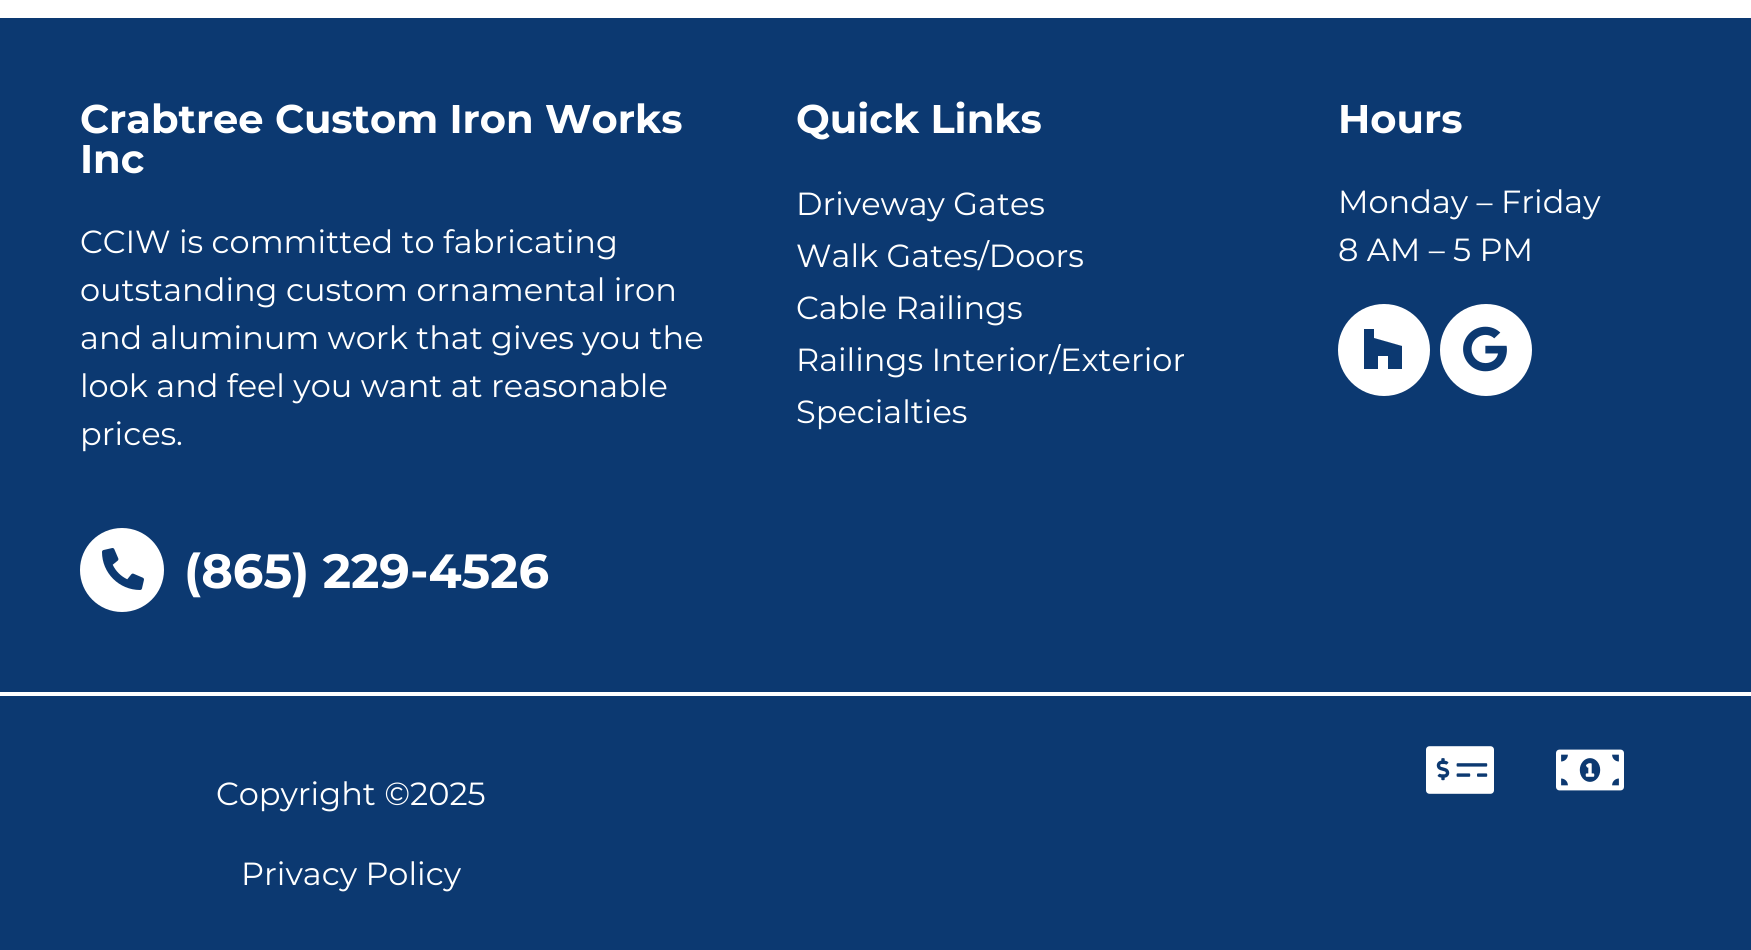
import math
import cairo


def paste(ctx, path, x, y, w, h):
	ctx.save()
	ctx.set_source_surface(cairo.ImageSurface.create_from_png(path), x, y)
	ctx.rectangle(x, y, w, h)
	ctx.fill()
	ctx.restore()

def draw(ctx):
	ctx.set_source_rgb(1, 1, 1)
	ctx.paint()
	ctx.set_source_rgb(0.047, 0.224, 0.443)
	ctx.rectangle(0, 18, 1751, 674)
	ctx.fill()
	ctx.select_font_face('Montserrat', cairo.FONT_SLANT_NORMAL, cairo.FONT_WEIGHT_BOLD)
	ctx.set_font_size(40)
	ctx.set_source_rgb(1, 1, 1)
	ctx.move_to(80, 133)
	ctx.show_text('Crabtree Custom Iron Works')
	ctx.move_to(80, 173)
	ctx.show_text('Inc')
	ctx.select_font_face('Montserrat')
	ctx.set_font_size(32)
	for x, y, s in [
		(80, 253, 'CCIW is committed to fabricating'),
		(80, 301, 'outstanding custom ornamental iron'),
		(80, 349, 'and aluminum work that gives you the'),
		(80, 397, 'look and feel you want at reasonable'),
		(80, 445, 'prices.'),
	]:
		ctx.move_to(x, y)
		ctx.show_text(s)
	ctx.new_path()
	ctx.arc(122, 570, 42, 0, 2 * math.pi)
	ctx.fill()
	paste(ctx, 'media/1.png', 102, 548, 42, 42)
	ctx.select_font_face('Montserrat', cairo.FONT_SLANT_NORMAL, cairo.FONT_WEIGHT_BOLD)
	ctx.set_font_size(48)
	ctx.move_to(184, 588)
	ctx.show_text('(865) 229-4526')
	ctx.set_font_size(40)
	ctx.move_to(796, 133)
	ctx.show_text('Quick Links')
	ctx.select_font_face('Montserrat')
	ctx.set_font_size(32)
	for x, y, s in [
		(796, 215, 'Driveway Gates'),
		(796, 267, 'Walk Gates/Doors'),
		(796, 319, 'Cable Railings'),
		(796, 371, 'Railings Interior/Exterior'),
		(796, 423, 'Specialties'),
	]:
		ctx.move_to(x, y)
		ctx.show_text(s)
	ctx.select_font_face('Montserrat', cairo.FONT_SLANT_NORMAL, cairo.FONT_WEIGHT_BOLD)
	ctx.set_font_size(40)
	ctx.move_to(1338, 133)
	ctx.show_text('Hours')
	ctx.select_font_face('Montserrat')
	ctx.set_font_size(32)
	ctx.move_to(1338, 213)
	ctx.show_text('Monday – Friday')
	ctx.move_to(1338, 261)
	ctx.show_text('8 AM – 5 PM')
	ctx.new_path()
	ctx.arc(1384, 350, 46, 0, 2 * math.pi)
	ctx.fill()
	ctx.set_source_rgb(0.047, 0.224, 0.443)
	ctx.new_path()
	ctx.move_to(1388, 356)
	ctx.line_to(1378, 356)
	ctx.line_to(1378, 369)
	ctx.line_to(1364, 369)
	ctx.line_to(1364, 329)
	ctx.line_to(1374, 329)
	ctx.line_to(1374, 338)
	ctx.line_to(1402, 346)
	ctx.line_to(1402, 369)
	ctx.line_to(1388, 369)
	ctx.close_path()
	ctx.fill()
	ctx.set_source_rgb(1, 1, 1)
	ctx.arc(1486, 350, 46, 0, 2 * math.pi)
	ctx.fill()
	paste(ctx, 'media/2.png', 1463, 326, 44, 46)
	ctx.set_source_rgb(0.047, 0.224, 0.443)
	ctx.rectangle(0, 696, 1751, 254)
	ctx.fill()
	paste(ctx, 'media/3.png', 1426, 746, 68, 48)
	paste(ctx, 'media/4.png', 1556, 749, 68, 42)
	ctx.set_source_rgb(1, 1, 1)
	ctx.move_to(216, 805)
	ctx.show_text('Copyright ©2025')
	ctx.move_to(241, 885)
	ctx.show_text('Privacy Policy')


surface = cairo.ImageSurface(cairo.FORMAT_RGB24, 1751, 950)
ctx = cairo.Context(surface)
options = cairo.FontOptions()
options.set_hint_metrics(cairo.HINT_METRICS_OFF)
options.set_hint_style(cairo.HINT_STYLE_NONE)
ctx.set_font_options(options)
ctx.set_miter_limit(4)
draw(ctx)
surface.write_to_png('image.png')
